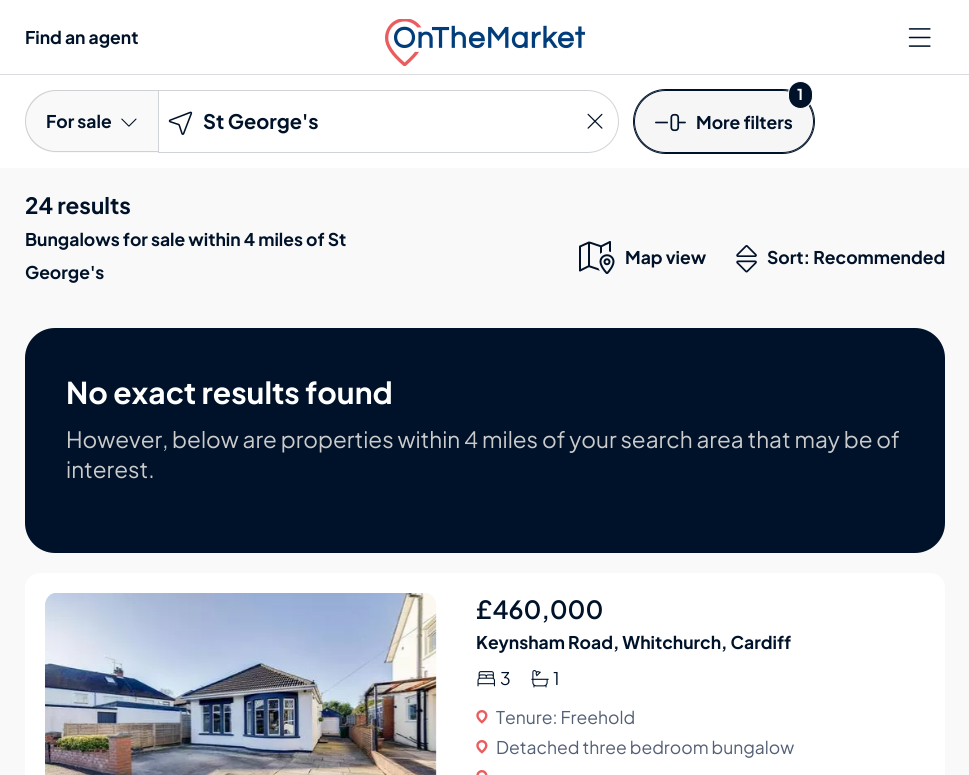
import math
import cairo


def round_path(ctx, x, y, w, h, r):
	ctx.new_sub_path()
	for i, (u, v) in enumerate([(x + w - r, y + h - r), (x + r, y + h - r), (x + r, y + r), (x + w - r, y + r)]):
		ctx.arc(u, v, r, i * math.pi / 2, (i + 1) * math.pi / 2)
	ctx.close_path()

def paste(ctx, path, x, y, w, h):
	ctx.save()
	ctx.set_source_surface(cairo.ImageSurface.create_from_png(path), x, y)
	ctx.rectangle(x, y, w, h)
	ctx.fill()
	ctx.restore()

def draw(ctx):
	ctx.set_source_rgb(1, 1, 1)
	ctx.paint()
	ctx.set_source_rgb(0.851, 0.863, 0.882)
	ctx.rectangle(0, 74, 969, 1)
	ctx.fill()
	ctx.select_font_face('Plus Jakarta Sans', cairo.FONT_SLANT_NORMAL, cairo.FONT_WEIGHT_BOLD)
	ctx.set_font_size(17.5)
	ctx.set_source_rgb(0, 0.071, 0.161)
	ctx.move_to(25, 44)
	ctx.show_text('Find an agent')
	paste(ctx, 'media/1.png', 385, 19, 200, 47)
	paste(ctx, 'media/2.png', 908, 28, 23, 19)
	ctx.set_source_rgb(0.98, 0.976, 0.976)
	ctx.new_path()
	ctx.move_to(56.5, 90)
	ctx.line_to(158, 90)
	ctx.line_to(158, 153)
	ctx.line_to(56.5, 153)
	ctx.curve_to(39, 153, 25, 139, 25, 121.5)
	ctx.curve_to(25, 104, 39, 90, 56.5, 90)
	ctx.close_path()
	ctx.fill()
	ctx.set_source_rgba(0.631, 0.659, 0.702, 0.5)
	ctx.set_fill_rule(cairo.FILL_RULE_EVEN_ODD)
	ctx.new_path()
	ctx.move_to(56, 90)
	ctx.line_to(158, 90)
	ctx.line_to(158, 152)
	ctx.line_to(56, 152)
	ctx.curve_to(39, 152, 25, 139, 25, 121)
	ctx.curve_to(25, 104, 39, 90, 56, 90)
	ctx.close_path()
	ctx.move_to(56, 91)
	ctx.line_to(158, 91)
	ctx.line_to(158, 151)
	ctx.line_to(56, 151)
	ctx.curve_to(40, 151, 26, 138, 26, 121)
	ctx.curve_to(26, 105, 40, 91, 56, 91)
	ctx.close_path()
	ctx.fill()
	ctx.set_source_rgb(0, 0.071, 0.161)
	ctx.move_to(46, 128)
	ctx.show_text('For sale')
	paste(ctx, 'media/3.png', 121, 118, 16, 9)
	ctx.new_path()
	ctx.move_to(158.5, 90.5)
	ctx.line_to(587.5, 90.5)
	ctx.curve_to(604.5, 90.5, 618.5, 104.5, 618.5, 121.5)
	ctx.curve_to(618.5, 138.5, 604.5, 152.5, 587.5, 152.5)
	ctx.line_to(158.5, 152.5)
	ctx.close_path()
	ctx.set_source_rgb(0.816, 0.831, 0.851)
	ctx.set_line_width(1)
	ctx.stroke()
	paste(ctx, 'media/4.png', 168, 111, 25, 24)
	ctx.set_font_size(20)
	ctx.set_source_rgb(0, 0.071, 0.161)
	ctx.move_to(203, 129)
	ctx.show_text('St George\'s')
	paste(ctx, 'media/5.png', 587, 113, 16, 16)
	round_path(ctx, 633.5, 89.5, 181, 64, 32)
	ctx.stroke()
	ctx.set_source_rgba(0.631, 0.659, 0.702, 0.1)
	round_path(ctx, 634.5, 90.5, 179, 62, 31)
	ctx.fill_preserve()
	ctx.set_source_rgb(0, 0.071, 0.161)
	ctx.stroke()
	round_path(ctx, 788.5, 81.5, 24, 27, 12)
	ctx.fill_preserve()
	ctx.set_source_rgb(1, 1, 1)
	ctx.stroke()
	ctx.set_font_size(15)
	ctx.move_to(797, 100)
	ctx.show_text('1')
	paste(ctx, 'media/6.png', 655, 113, 31, 19)
	ctx.set_font_size(17.5)
	ctx.set_source_rgb(0, 0.071, 0.161)
	ctx.move_to(696, 129)
	ctx.show_text('More filters')
	ctx.set_source_rgb(0.98, 0.976, 0.976)
	ctx.rectangle(0, 168, 969, 607)
	ctx.fill()
	ctx.set_font_size(22.5)
	ctx.set_source_rgb(0, 0.071, 0.161)
	ctx.move_to(25, 214)
	ctx.show_text('24 results')
	ctx.set_font_size(17.5)
	ctx.move_to(25, 246)
	ctx.show_text('Bungalows for sale within 4 miles of St')
	ctx.move_to(25, 279)
	ctx.show_text('George\'s')
	paste(ctx, 'media/7.png', 579, 241, 36, 33)
	ctx.move_to(625, 264)
	ctx.show_text('Map view')
	paste(ctx, 'media/8.png', 736, 245, 21, 28)
	ctx.move_to(767, 264)
	ctx.show_text('Sort: Recommended')
	round_path(ctx, 25, 328, 920, 225, 30)
	ctx.fill()
	ctx.set_font_size(30)
	ctx.set_source_rgb(1, 1, 1)
	ctx.move_to(66, 404)
	ctx.show_text('No exact results found')
	ctx.select_font_face('Plus Jakarta Sans')
	ctx.set_font_size(22.5)
	ctx.set_source_rgb(0.796, 0.796, 0.796)
	ctx.move_to(66, 448)
	ctx.show_text('However, below are properties within 4 miles of your search area that may be of')
	ctx.move_to(66, 478)
	ctx.show_text('interest.')
	ctx.set_source_rgb(1, 1, 1)
	ctx.new_path()
	ctx.move_to(40, 573)
	ctx.line_to(930, 573)
	ctx.curve_to(938.5, 573, 945, 579.5, 945, 588)
	ctx.line_to(945, 775)
	ctx.line_to(25, 775)
	ctx.line_to(25, 588)
	ctx.curve_to(25, 579.5, 31.5, 573, 40, 573)
	ctx.close_path()
	ctx.fill()
	paste(ctx, 'media/9.png', 45, 593, 392, 182)
	ctx.select_font_face('Plus Jakarta Sans SemiBold')
	ctx.set_font_size(25)
	ctx.set_source_rgb(0, 0.071, 0.161)
	ctx.move_to(476, 619)
	ctx.show_text('£460,000')
	ctx.select_font_face('Plus Jakarta Sans', cairo.FONT_SLANT_NORMAL, cairo.FONT_WEIGHT_BOLD)
	ctx.set_font_size(17.5)
	ctx.move_to(476, 649)
	ctx.show_text('Keynsham Road, Whitchurch, Cardiff')
	paste(ctx, 'media/10.png', 477, 671, 18, 16)
	ctx.select_font_face('Plus Jakarta Sans')
	ctx.move_to(500, 685)
	ctx.show_text('3')
	paste(ctx, 'media/11.png', 531, 670, 18, 18)
	ctx.move_to(553, 685)
	ctx.show_text('1')
	paste(ctx, 'media/12.png', 476, 710, 12, 14)
	ctx.set_source_rgb(0.322, 0.373, 0.455)
	ctx.move_to(496, 724)
	ctx.show_text('Tenure: Freehold')
	paste(ctx, 'media/12.png', 476, 740, 12, 14)
	ctx.move_to(496, 754)
	ctx.show_text('Detached three bedroom bungalow')
	paste(ctx, 'media/13.png', 476, 770, 12, 5)


surface = cairo.ImageSurface(cairo.FORMAT_RGB24, 969, 775)
ctx = cairo.Context(surface)
options = cairo.FontOptions()
options.set_hint_metrics(cairo.HINT_METRICS_OFF)
options.set_hint_style(cairo.HINT_STYLE_NONE)
ctx.set_font_options(options)
ctx.set_miter_limit(4)
draw(ctx)
surface.write_to_png('image.png')
